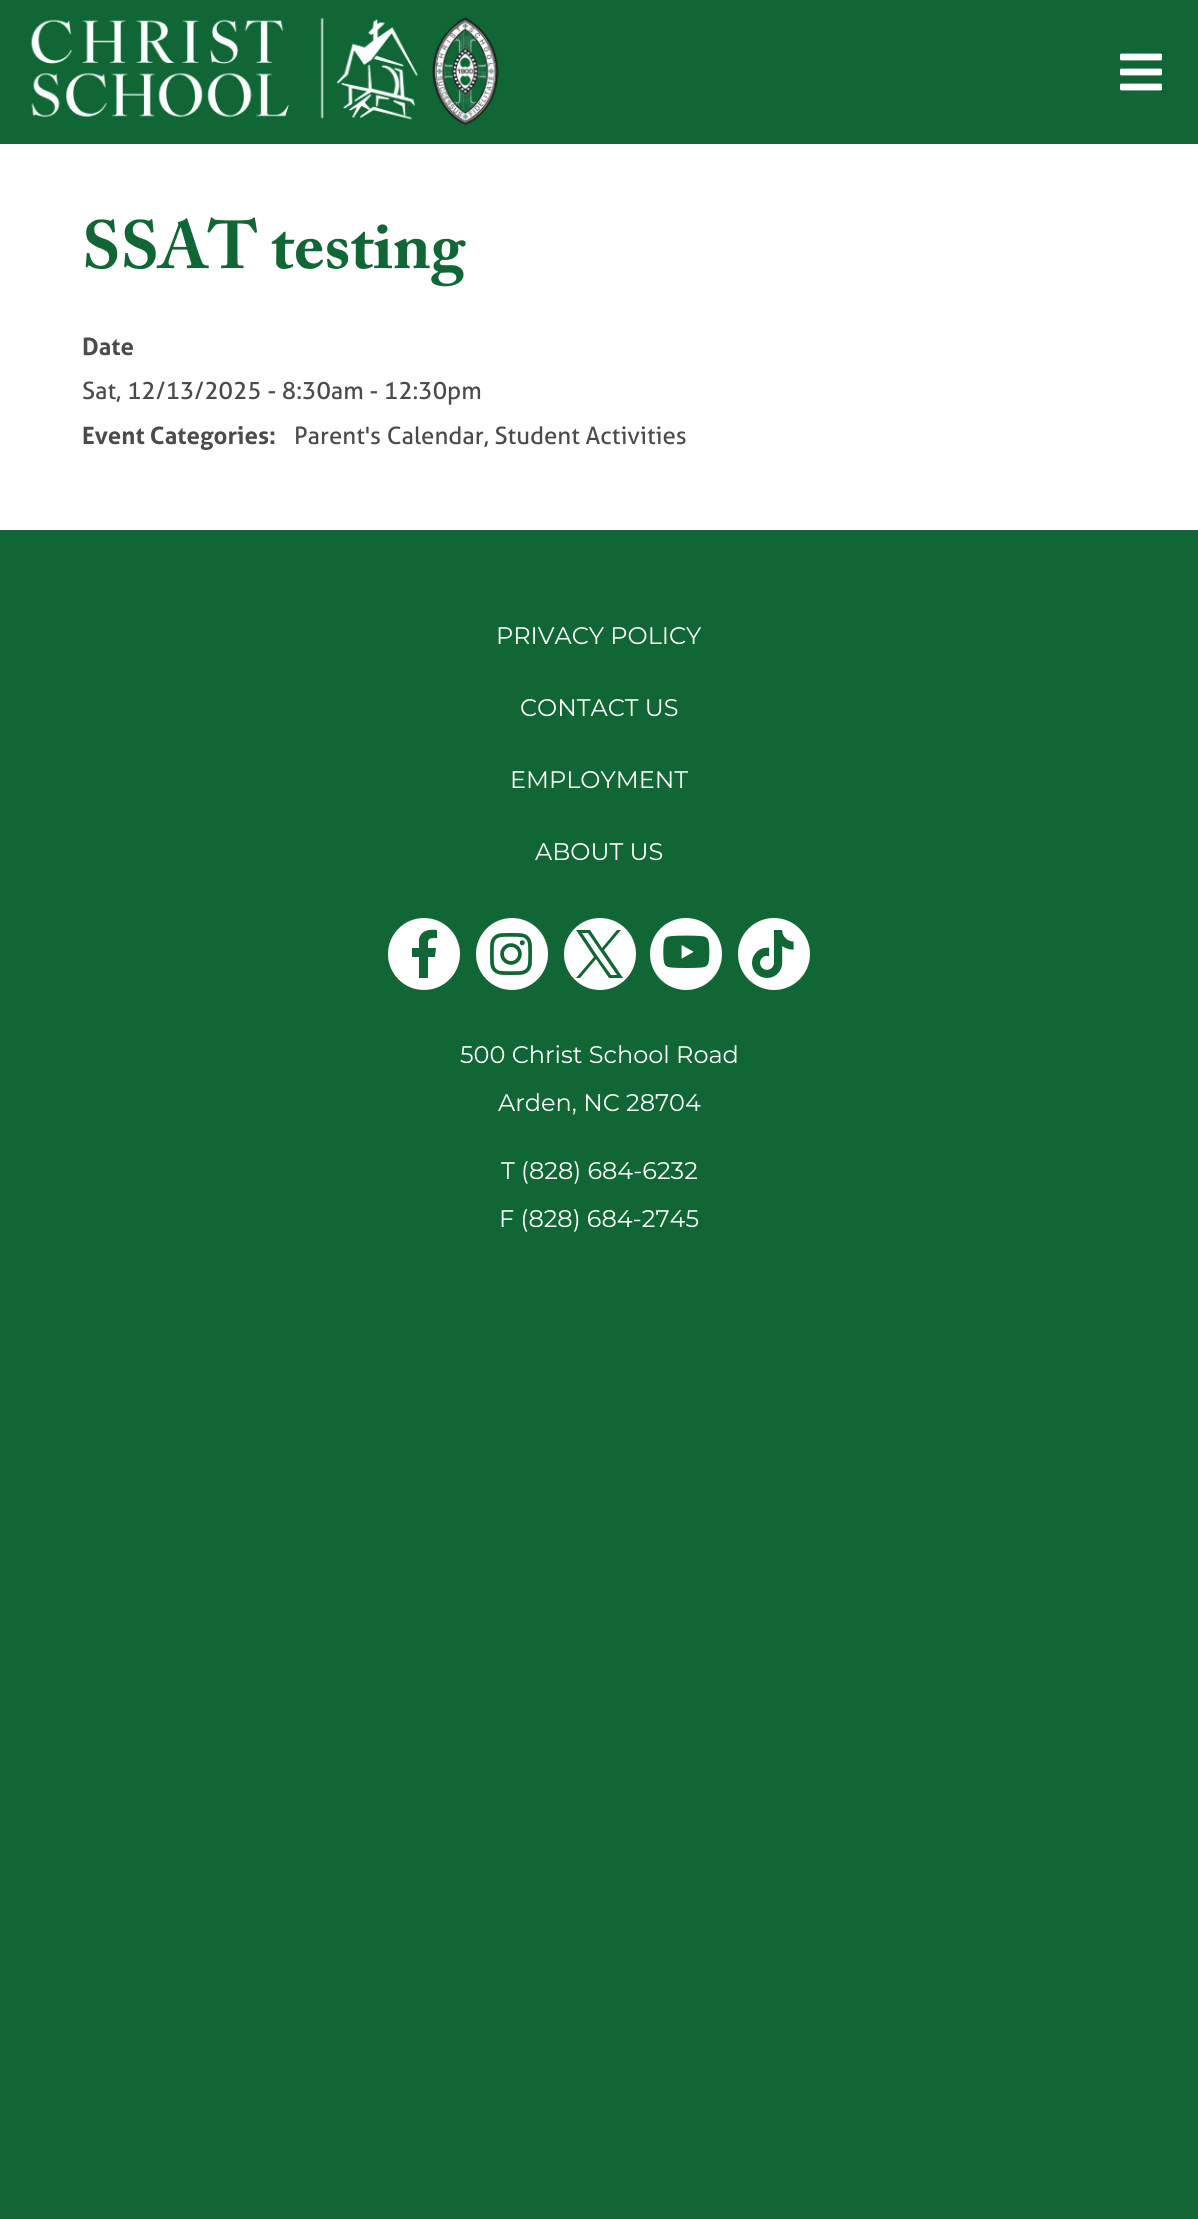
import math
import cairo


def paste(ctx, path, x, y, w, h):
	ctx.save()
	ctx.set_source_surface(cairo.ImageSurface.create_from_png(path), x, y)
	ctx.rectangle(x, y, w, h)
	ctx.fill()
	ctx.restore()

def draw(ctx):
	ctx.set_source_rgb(0.063, 0.404, 0.208)
	ctx.paint()
	ctx.set_source_rgb(1, 1, 1)
	ctx.rectangle(0, 144, 1198, 386)
	ctx.fill()
	paste(ctx, 'media/1.png', 31, 17, 468, 109)
	paste(ctx, 'media/2.png', 1120, 53, 42, 38)
	ctx.select_font_face('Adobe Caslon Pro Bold', cairo.FONT_SLANT_NORMAL, cairo.FONT_WEIGHT_BOLD)
	ctx.set_font_size(67.25)
	ctx.set_source_rgb(0.063, 0.404, 0.208)
	ctx.move_to(82, 268)
	ctx.show_text('SSAT testing')
	ctx.select_font_face('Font', cairo.FONT_SLANT_NORMAL, cairo.FONT_WEIGHT_BOLD)
	ctx.set_font_size(24)
	ctx.set_source_rgb(0.294, 0.294, 0.294)
	ctx.move_to(82, 355)
	ctx.show_text('Date')
	ctx.select_font_face('Font')
	ctx.move_to(82, 399)
	ctx.show_text('Sat, 12/13/2025 - 8:30am - 12:30pm')
	ctx.select_font_face('Font', cairo.FONT_SLANT_NORMAL, cairo.FONT_WEIGHT_BOLD)
	ctx.move_to(82, 444)
	ctx.show_text('Event Categories:')
	ctx.select_font_face('Font')
	ctx.move_to(294, 444)
	ctx.show_text('Parent\'s Calendar, Student Activities')
	ctx.select_font_face('Montserrat')
	ctx.set_source_rgb(1, 1, 1)
	for x, y, s in [
		(496, 644, 'PRIVACY POLICY'),
		(520, 716, 'CONTACT US'),
		(510, 788, 'EMPLOYMENT'),
		(535, 860, 'ABOUT US'),
	]:
		ctx.move_to(x, y)
		ctx.show_text(s)
	ctx.new_path()
	ctx.arc(424, 954, 36, 0, 2 * math.pi)
	ctx.fill()
	ctx.set_source_rgb(0.063, 0.404, 0.208)
	ctx.new_path()
	ctx.move_to(419, 978)
	ctx.line_to(419, 957)
	ctx.line_to(412, 957)
	ctx.line_to(412, 948)
	ctx.line_to(419, 948)
	ctx.line_to(419, 939)
	ctx.curve_to(421, 930, 430, 929, 437, 930)
	ctx.line_to(437, 938)
	ctx.curve_to(427, 938, 428, 939, 428, 948)
	ctx.line_to(436, 948)
	ctx.line_to(435, 957)
	ctx.line_to(428, 957)
	ctx.line_to(428, 978)
	ctx.close_path()
	ctx.fill()
	ctx.set_source_rgb(1, 1, 1)
	ctx.arc(512, 954, 36, 0, 2 * math.pi)
	ctx.fill()
	paste(ctx, 'media/3.png', 490, 933, 42, 42)
	ctx.arc(600, 954, 36, 0, 2 * math.pi)
	ctx.fill()
	ctx.set_source_rgb(0.063, 0.404, 0.208)
	ctx.new_path()
	ctx.move_to(604, 950)
	ctx.line_to(621, 930)
	ctx.line_to(617, 930)
	ctx.line_to(602, 948)
	ctx.line_to(590, 930)
	ctx.line_to(576, 930)
	ctx.line_to(594, 957)
	ctx.line_to(576, 978)
	ctx.line_to(580, 978)
	ctx.line_to(596, 959)
	ctx.line_to(609, 978)
	ctx.line_to(623, 978)
	ctx.close_path()
	ctx.move_to(598, 957)
	ctx.line_to(582, 933)
	ctx.line_to(588, 933)
	ctx.line_to(617, 975)
	ctx.line_to(611, 975)
	ctx.close_path()
	ctx.fill()
	ctx.set_source_rgb(1, 1, 1)
	ctx.arc(686, 954, 36, 0, 2 * math.pi)
	ctx.fill()
	paste(ctx, 'media/4.png', 663, 935, 47, 33)
	ctx.arc(774, 954, 36, 0, 2 * math.pi)
	ctx.fill()
	paste(ctx, 'media/5.png', 752, 930, 42, 48)
	for x, y, s in [
		(460, 1063, '500 Christ School Road'),
		(498, 1111, 'Arden, NC 28704'),
		(501, 1179, 'T (828) 684-6232'),
		(499, 1227, 'F (828) 684-2745'),
	]:
		ctx.move_to(x, y)
		ctx.show_text(s)


surface = cairo.ImageSurface(cairo.FORMAT_RGB24, 1198, 2219)
ctx = cairo.Context(surface)
options = cairo.FontOptions()
options.set_hint_metrics(cairo.HINT_METRICS_OFF)
options.set_hint_style(cairo.HINT_STYLE_NONE)
ctx.set_font_options(options)
ctx.set_miter_limit(4)
draw(ctx)
surface.write_to_png('image.png')
